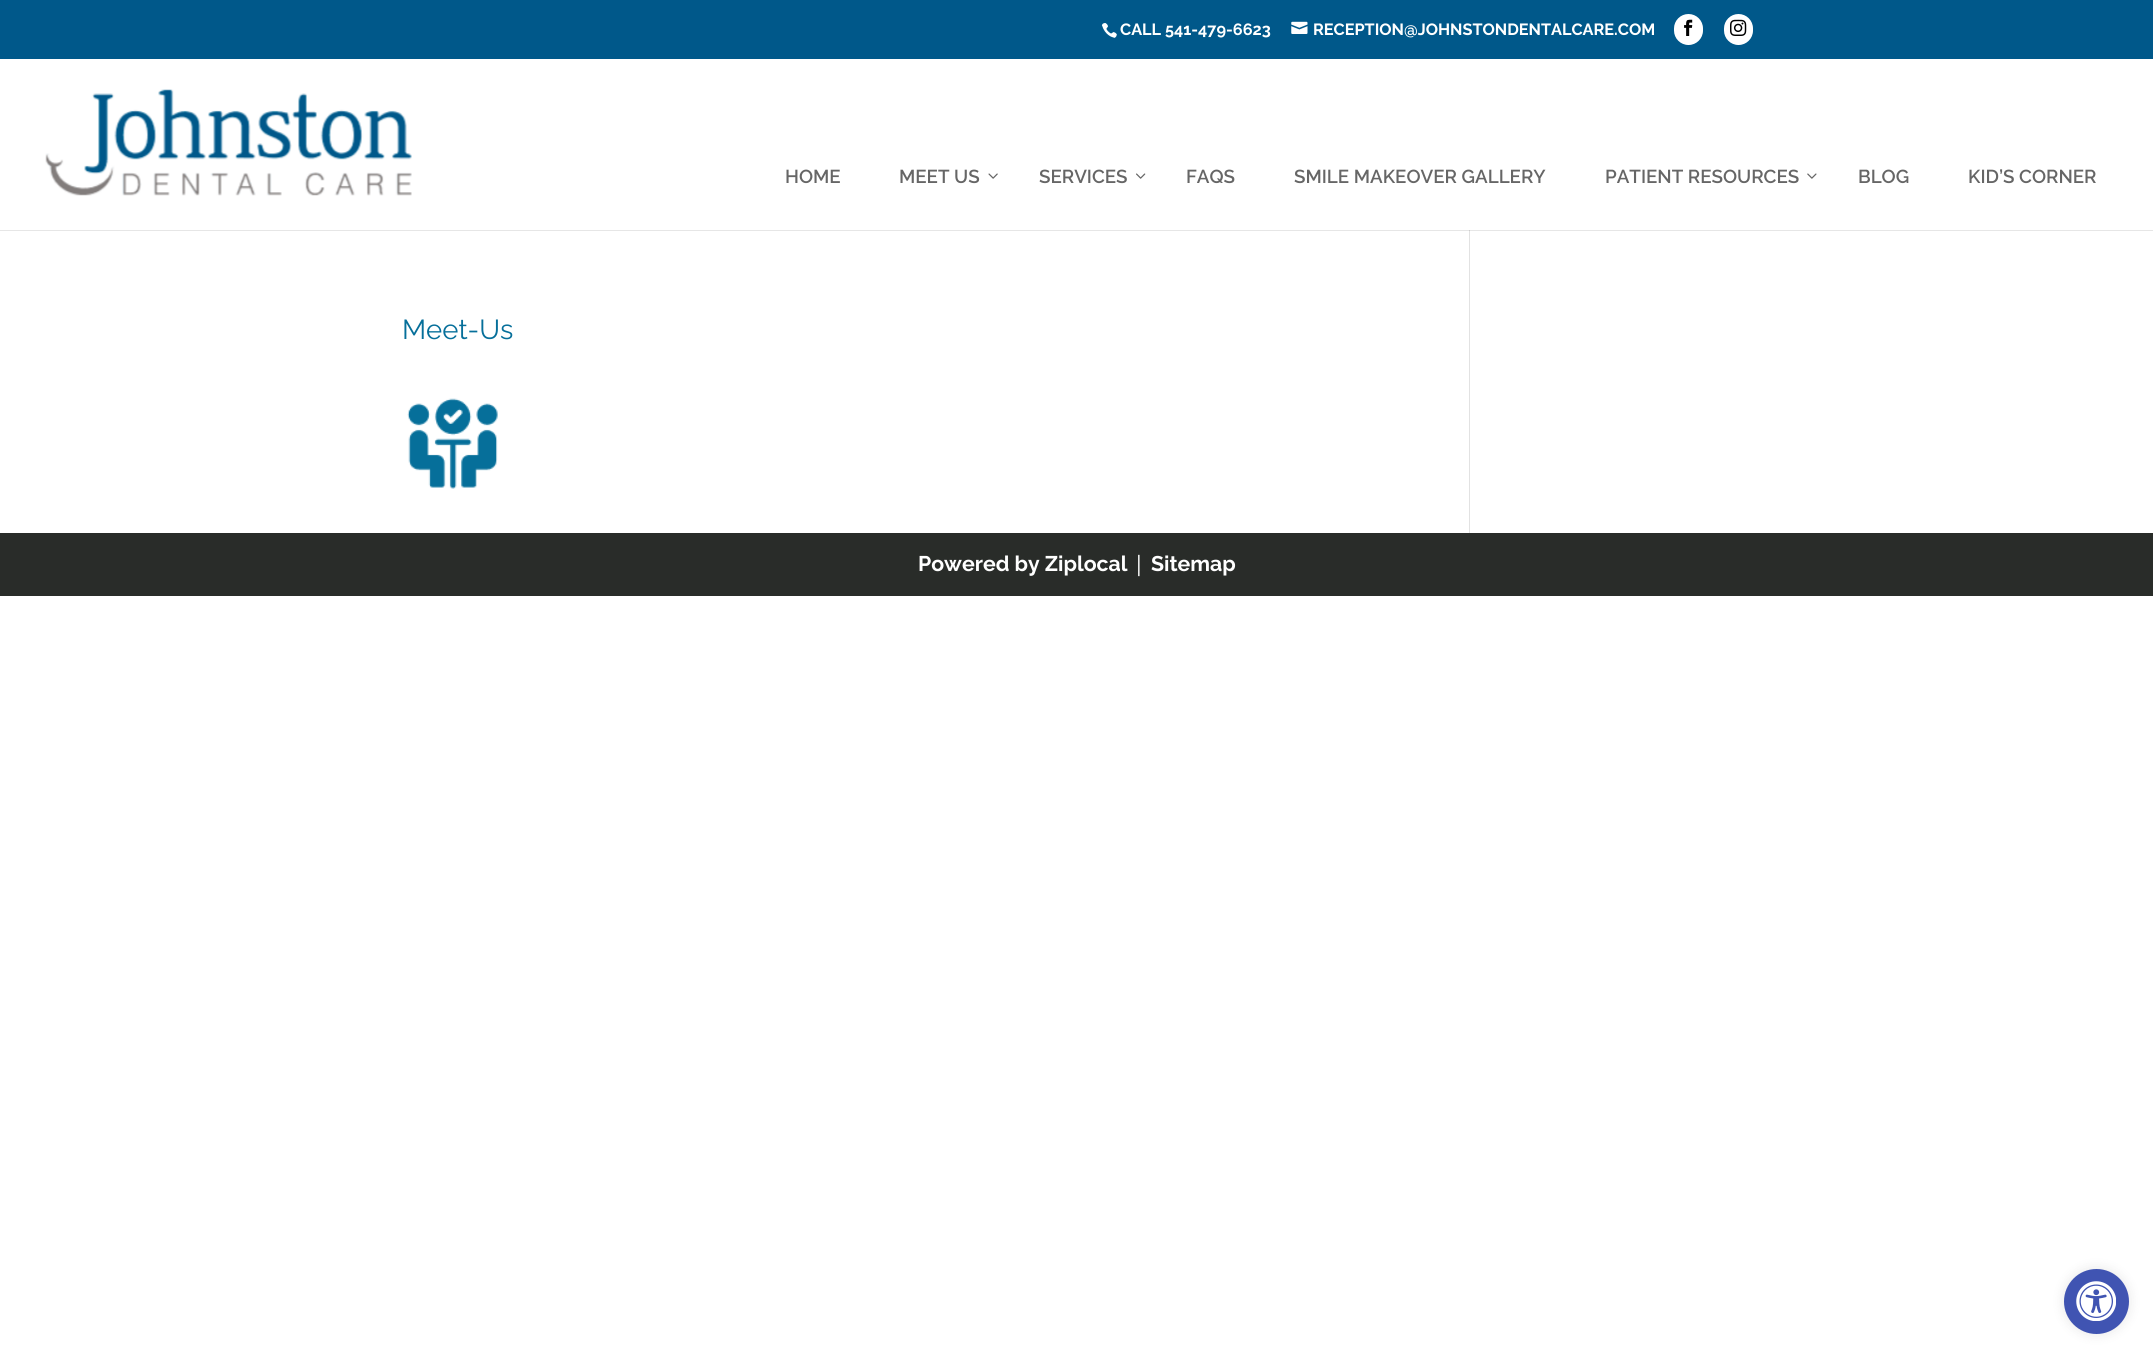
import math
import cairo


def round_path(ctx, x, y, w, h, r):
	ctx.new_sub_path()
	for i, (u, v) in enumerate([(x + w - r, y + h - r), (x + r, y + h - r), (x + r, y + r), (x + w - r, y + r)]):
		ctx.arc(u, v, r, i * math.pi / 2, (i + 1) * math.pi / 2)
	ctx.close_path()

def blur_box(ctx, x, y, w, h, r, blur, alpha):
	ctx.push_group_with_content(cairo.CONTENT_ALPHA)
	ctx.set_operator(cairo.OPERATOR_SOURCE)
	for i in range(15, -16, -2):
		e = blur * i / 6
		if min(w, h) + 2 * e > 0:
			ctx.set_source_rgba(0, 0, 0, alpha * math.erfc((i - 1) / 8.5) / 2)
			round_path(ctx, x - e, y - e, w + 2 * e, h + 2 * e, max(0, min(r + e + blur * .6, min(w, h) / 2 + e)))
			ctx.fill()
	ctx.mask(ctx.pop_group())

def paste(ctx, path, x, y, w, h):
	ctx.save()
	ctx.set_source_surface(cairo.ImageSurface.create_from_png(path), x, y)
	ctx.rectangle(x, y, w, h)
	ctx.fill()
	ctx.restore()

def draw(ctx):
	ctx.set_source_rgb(1, 1, 1)
	ctx.paint()
	ctx.set_source_rgb(0, 0.345, 0.541)
	ctx.rectangle(0, 0, 2153, 59)
	ctx.fill()
	paste(ctx, 'media/1.png', 1101, 23, 16, 15)
	ctx.select_font_face('Raleway', cairo.FONT_SLANT_NORMAL, cairo.FONT_WEIGHT_BOLD)
	ctx.set_font_size(16.25)
	ctx.set_source_rgb(1, 1, 1)
	ctx.move_to(1120, 35)
	ctx.show_text('CALL 541-479-6623')
	paste(ctx, 'media/2.png', 1291, 21, 17, 13)
	ctx.move_to(1313, 35)
	ctx.show_text('RECEPTION@JOHNSTONDENTALCARE.COM')
	round_path(ctx, 1674, 14, 29, 31, 14.5)
	ctx.fill()
	paste(ctx, 'media/3.png', 1684, 19, 9, 17)
	round_path(ctx, 1724, 14, 29, 31, 14.5)
	ctx.fill()
	paste(ctx, 'media/4.png', 1730, 19, 17, 17)
	ctx.set_source_rgb(0.886, 0.886, 0.886)
	ctx.rectangle(1469, 229, 1, 304)
	ctx.fill()
	ctx.set_source_rgba(0, 0, 0, 0.1)
	ctx.new_path()
	ctx.move_to(0, 230)
	ctx.line_to(0, 231)
	ctx.line_to(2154, 231)
	ctx.line_to(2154, 60)
	ctx.line_to(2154, 230)
	ctx.close_path()
	ctx.fill()
	ctx.set_source_rgb(1, 1, 1)
	ctx.rectangle(1469, 229, 1, 1)
	ctx.fill()
	paste(ctx, 'media/5.png', 45, 89, 367, 107)
	ctx.select_font_face('Raleway SemiBold')
	ctx.set_font_size(18.75)
	ctx.set_source_rgb(0.4, 0.4, 0.4)
	ctx.move_to(785, 183)
	ctx.show_text('HOME')
	ctx.move_to(899, 183)
	ctx.show_text('MEET US')
	paste(ctx, 'media/6.png', 988, 173, 10, 6)
	ctx.move_to(1039, 183)
	ctx.show_text('SERVICES')
	paste(ctx, 'media/7.png', 1136, 173, 10, 6)
	for x, y, s in [
		(1186, 183, 'FAQS'),
		(1294, 183, 'SMILE MAKEOVER GALLERY'),
		(1605, 183, 'PATIENT RESOURCES'),
	]:
		ctx.move_to(x, y)
		ctx.show_text(s)
	paste(ctx, 'media/8.png', 1807, 173, 10, 6)
	ctx.move_to(1858, 183)
	ctx.show_text('BLOG')
	ctx.move_to(1968, 183)
	ctx.show_text('KID’S CORNER')
	ctx.select_font_face('Raleway')
	ctx.set_font_size(27.5)
	ctx.set_source_rgb(0.024, 0.435, 0.604)
	ctx.move_to(402, 339)
	ctx.show_text('Meet-Us')
	paste(ctx, 'media/9.png', 407, 398, 91, 91)
	ctx.set_source_rgb(0.161, 0.173, 0.161)
	ctx.rectangle(0, 533, 2153, 63)
	ctx.fill()
	ctx.select_font_face('Raleway', cairo.FONT_SLANT_NORMAL, cairo.FONT_WEIGHT_BOLD)
	ctx.set_font_size(21.25)
	ctx.set_source_rgb(1, 1, 1)
	ctx.move_to(918, 571)
	ctx.show_text('Powered by Ziplocal')
	ctx.select_font_face('Open Sans')
	ctx.move_to(1133, 571)
	ctx.show_text('|')
	ctx.select_font_face('Raleway', cairo.FONT_SLANT_NORMAL, cairo.FONT_WEIGHT_BOLD)
	ctx.move_to(1151, 571)
	ctx.show_text('Sitemap')
	ctx.set_source_rgb(0, 0, 0)
	blur_box(ctx, 2064, 1269, 65, 65, 32.5, 6, 0.1)
	ctx.set_source_rgb(0.251, 0.329, 0.698)
	ctx.arc(2096.5, 1301.5, 32.5, 0, 2 * math.pi)
	ctx.fill()
	paste(ctx, 'media/10.png', 2076, 1281, 40, 40)


surface = cairo.ImageSurface(cairo.FORMAT_RGB24, 2153, 1358)
ctx = cairo.Context(surface)
options = cairo.FontOptions()
options.set_hint_metrics(cairo.HINT_METRICS_OFF)
options.set_hint_style(cairo.HINT_STYLE_NONE)
ctx.set_font_options(options)
ctx.set_miter_limit(4)
draw(ctx)
surface.write_to_png('image.png')
